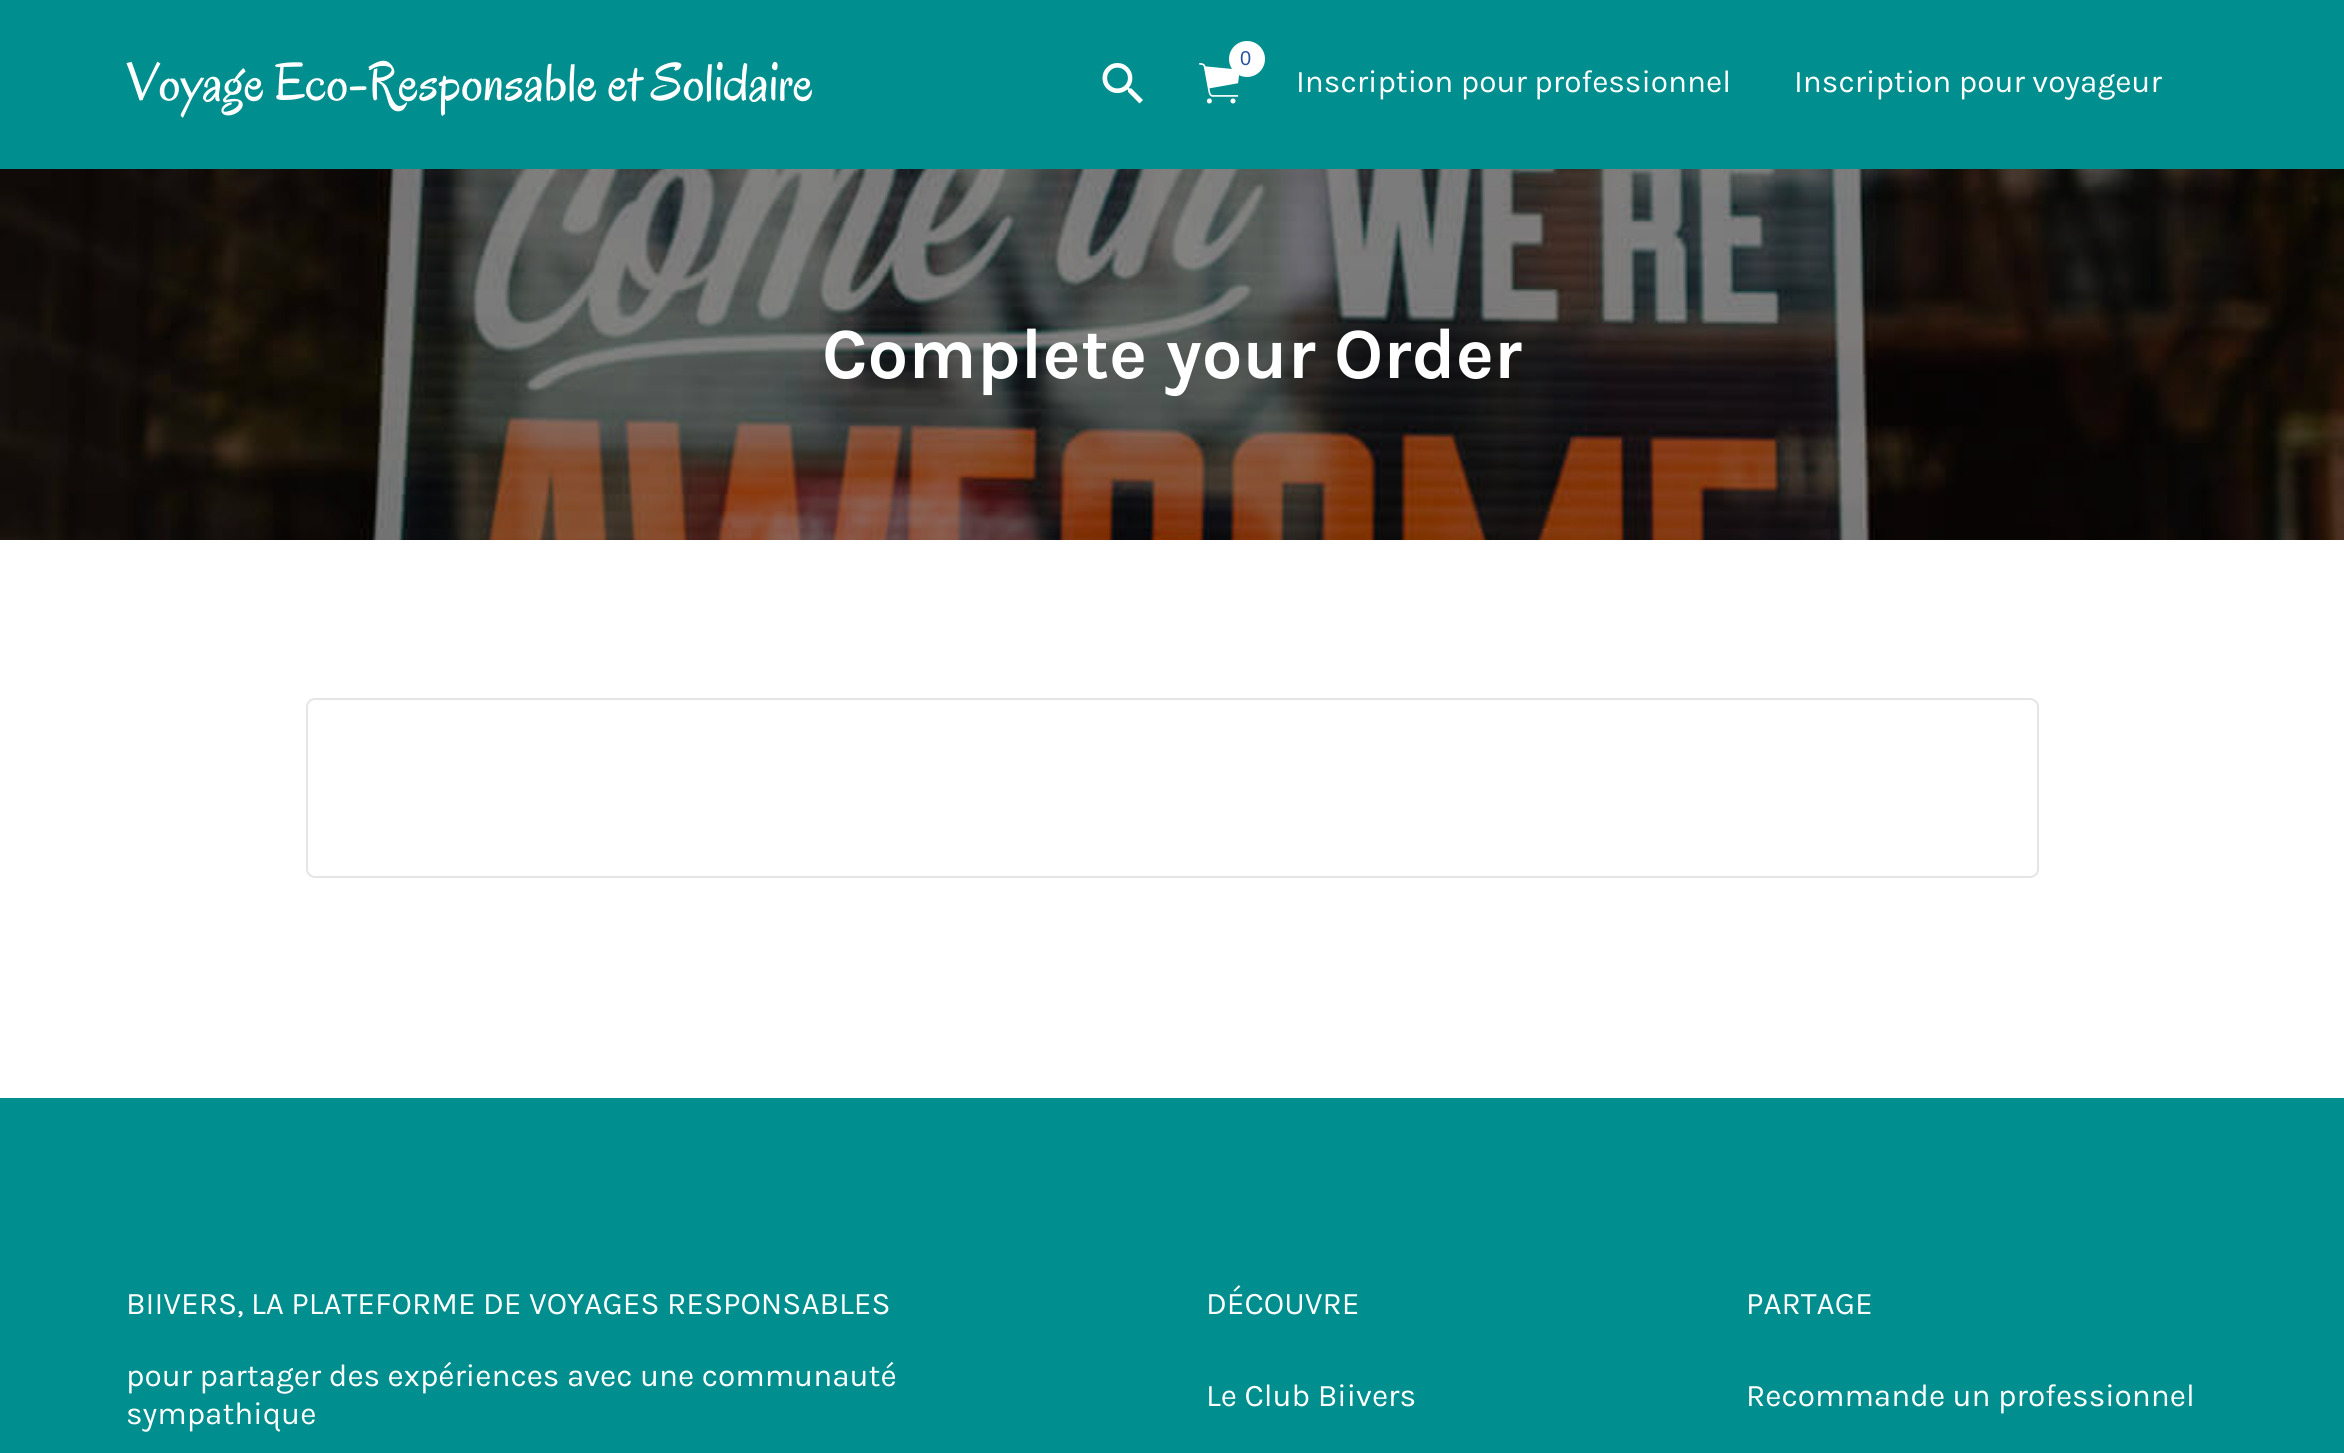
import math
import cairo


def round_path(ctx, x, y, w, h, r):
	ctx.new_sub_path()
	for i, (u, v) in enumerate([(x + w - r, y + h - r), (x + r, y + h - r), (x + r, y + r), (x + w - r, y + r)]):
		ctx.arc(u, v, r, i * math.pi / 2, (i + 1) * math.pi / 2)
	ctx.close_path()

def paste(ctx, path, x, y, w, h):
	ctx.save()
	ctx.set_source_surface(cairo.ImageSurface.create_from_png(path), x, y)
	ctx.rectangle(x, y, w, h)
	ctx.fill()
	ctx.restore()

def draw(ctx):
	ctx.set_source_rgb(1, 1, 1)
	ctx.paint()
	ctx.set_source_rgb(0, 0.557, 0.557)
	ctx.rectangle(0, 0, 2344, 169)
	ctx.fill()
	ctx.select_font_face('Oregano')
	ctx.set_font_size(54)
	ctx.set_source_rgb(1, 1, 1)
	ctx.move_to(126, 100)
	ctx.show_text('Voyage Eco-Responsable et Solidaire')
	paste(ctx, 'media/1.png', 1199, 63, 41, 41)
	ctx.arc(1247, 59, 18, 0, 2 * math.pi)
	ctx.fill()
	ctx.select_font_face('Liberation Sans')
	ctx.set_font_size(20)
	ctx.set_source_rgb(0.157, 0.329, 0.631)
	ctx.move_to(1240, 65)
	ctx.show_text('0')
	paste(ctx, 'media/2.png', 1102, 63, 41, 41)
	ctx.select_font_face('Karla')
	ctx.set_font_size(31.5)
	ctx.set_source_rgb(1, 1, 1)
	ctx.move_to(1296, 92)
	ctx.show_text('Inscription pour professionnel')
	ctx.move_to(1794, 92)
	ctx.show_text('Inscription pour voyageur')
	paste(ctx, 'media/3.png', 0, 169, 2344, 371)
	ctx.select_font_face('Karla', cairo.FONT_SLANT_NORMAL, cairo.FONT_WEIGHT_BOLD)
	ctx.set_font_size(72)
	ctx.move_to(822, 378)
	ctx.show_text('Complete your Order')
	round_path(ctx, 307, 699, 1731, 178, 8)
	ctx.set_source_rgb(0.898, 0.898, 0.898)
	ctx.stroke()
	ctx.set_source_rgb(0, 0.557, 0.557)
	ctx.rectangle(0, 1098, 2344, 355)
	ctx.fill()
	ctx.select_font_face('Karla')
	ctx.set_font_size(31.5)
	ctx.set_source_rgb(1, 1, 1)
	for x, y, s in [
		(126, 1314, 'BIIVERS, LA PLATEFORME DE VOYAGES RESPONSABLES'),
		(126, 1386, 'pour partager des expériences avec une communauté'),
		(126, 1424, 'sympathique'),
		(1206, 1314, 'DÉCOUVRE'),
		(1206, 1406, 'Le Club Biivers'),
		(1746, 1314, 'PARTAGE'),
		(1746, 1406, 'Recommande un professionnel'),
	]:
		ctx.move_to(x, y)
		ctx.show_text(s)


surface = cairo.ImageSurface(cairo.FORMAT_RGB24, 2344, 1453)
ctx = cairo.Context(surface)
options = cairo.FontOptions()
options.set_hint_metrics(cairo.HINT_METRICS_OFF)
options.set_hint_style(cairo.HINT_STYLE_NONE)
ctx.set_font_options(options)
ctx.set_miter_limit(4)
draw(ctx)
surface.write_to_png('image.png')
